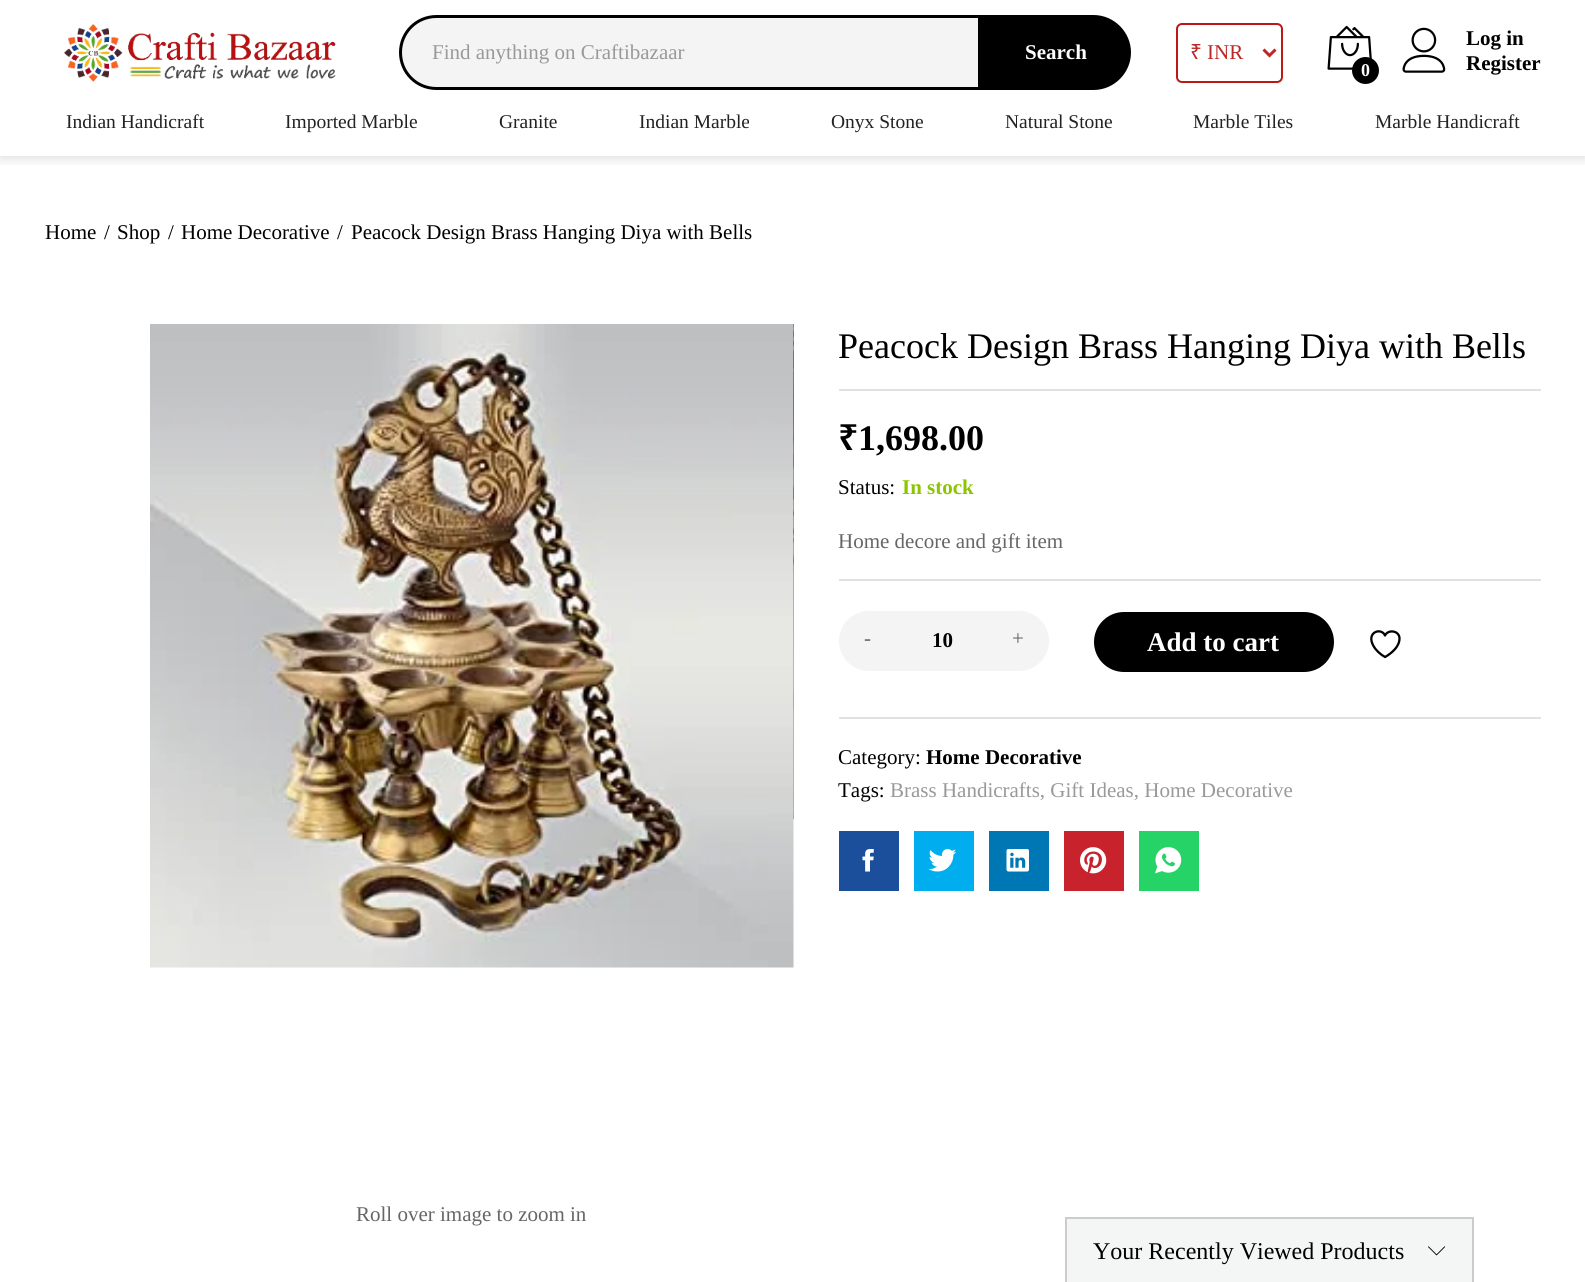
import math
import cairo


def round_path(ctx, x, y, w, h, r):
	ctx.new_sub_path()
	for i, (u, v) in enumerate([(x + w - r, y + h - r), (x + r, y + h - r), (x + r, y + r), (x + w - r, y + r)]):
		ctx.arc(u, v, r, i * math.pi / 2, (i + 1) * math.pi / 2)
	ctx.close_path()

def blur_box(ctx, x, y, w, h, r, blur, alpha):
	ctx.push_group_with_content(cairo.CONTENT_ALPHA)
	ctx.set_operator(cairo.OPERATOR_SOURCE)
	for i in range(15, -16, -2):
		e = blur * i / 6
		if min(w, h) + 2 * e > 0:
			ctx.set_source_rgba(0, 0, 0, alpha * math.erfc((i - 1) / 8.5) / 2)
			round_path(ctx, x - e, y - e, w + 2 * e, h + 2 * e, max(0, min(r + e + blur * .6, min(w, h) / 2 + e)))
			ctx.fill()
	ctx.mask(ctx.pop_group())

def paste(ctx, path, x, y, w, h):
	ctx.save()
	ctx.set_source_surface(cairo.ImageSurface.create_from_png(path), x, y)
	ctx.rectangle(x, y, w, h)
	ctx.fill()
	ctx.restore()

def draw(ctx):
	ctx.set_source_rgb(1, 1, 1)
	ctx.paint()
	ctx.save()
	ctx.rectangle(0, 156, 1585, 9)
	ctx.clip()
	ctx.set_source_rgb(0, 0, 0)
	blur_box(ctx, 0, 0, 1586, 156, 0, 7.5, 0.18)
	ctx.restore()
	paste(ctx, 'media/1.png', 64, 24, 272, 58)
	ctx.set_source_rgb(0.957, 0.957, 0.957)
	ctx.new_path()
	ctx.move_to(436.5, 16.5)
	ctx.line_to(979.5, 16.5)
	ctx.line_to(979.5, 88.5)
	ctx.line_to(436.5, 88.5)
	ctx.curve_to(416.5, 88.5, 400.5, 72.5, 400.5, 52.5)
	ctx.curve_to(400.5, 32.5, 416.5, 16.5, 436.5, 16.5)
	ctx.close_path()
	ctx.fill_preserve()
	ctx.set_source_rgb(0, 0, 0)
	ctx.set_line_width(3)
	ctx.stroke()
	ctx.select_font_face('Liberation Serif')
	ctx.set_font_size(21)
	ctx.set_source_rgb(0.6, 0.6, 0.6)
	ctx.move_to(432, 59)
	ctx.show_text('Find anything on Craftibazaar')
	ctx.set_source_rgb(0, 0, 0)
	ctx.new_path()
	ctx.move_to(981, 15)
	ctx.line_to(1093.5, 15)
	ctx.curve_to(1114, 15, 1131, 32, 1131, 52.5)
	ctx.curve_to(1131, 73, 1114, 90, 1093.5, 90)
	ctx.line_to(981, 90)
	ctx.close_path()
	ctx.fill()
	ctx.select_font_face('Liberation Serif', cairo.FONT_SLANT_NORMAL, cairo.FONT_WEIGHT_BOLD)
	ctx.set_source_rgb(1, 1, 1)
	ctx.move_to(1025, 59)
	ctx.show_text('Search')
	round_path(ctx, 1177, 24, 105, 58, 5)
	ctx.set_source_rgb(0.733, 0.094, 0.094)
	ctx.set_line_width(2)
	ctx.stroke()
	ctx.new_path()
	ctx.move_to(1263.5, 49.5)
	ctx.line_to(1269.5, 55.5)
	ctx.line_to(1275.5, 49.5)
	ctx.set_source_rgb(0.737, 0.153, 0.153)
	ctx.set_line_width(3)
	ctx.stroke()
	ctx.select_font_face('Noto Sans')
	ctx.move_to(1190, 59)
	ctx.show_text('₹')
	ctx.select_font_face('Liberation Serif')
	ctx.move_to(1207, 59)
	ctx.show_text('INR')
	paste(ctx, 'media/2.png', 1327, 25, 45, 45)
	ctx.set_source_rgb(0, 0, 0)
	ctx.arc(1365.5, 70.5, 13.5, 0, 2 * math.pi)
	ctx.fill()
	ctx.select_font_face('Liberation Serif', cairo.FONT_SLANT_NORMAL, cairo.FONT_WEIGHT_BOLD)
	ctx.set_font_size(18)
	ctx.set_source_rgb(1, 1, 1)
	ctx.move_to(1361, 76)
	ctx.show_text('0')
	paste(ctx, 'media/3.png', 1402, 27, 44, 46)
	ctx.set_font_size(21)
	ctx.set_source_rgb(0, 0, 0)
	ctx.move_to(1466, 45)
	ctx.show_text('Log in')
	ctx.move_to(1466, 70)
	ctx.show_text('Register')
	ctx.select_font_face('Liberation Serif')
	ctx.set_font_size(19.5)
	ctx.set_source_rgb(0.133, 0.133, 0.133)
	for x, y, s in [
		(66, 128, 'Indian Handicraft'),
		(285, 128, 'Imported Marble'),
		(499, 128, 'Granite'),
		(639, 128, 'Indian Marble'),
		(831, 128, 'Onyx Stone'),
		(1005, 128, 'Natural Stone'),
		(1193, 128, 'Marble Tiles'),
		(1375, 128, 'Marble Handicraft'),
	]:
		ctx.move_to(x, y)
		ctx.show_text(s)
	ctx.set_font_size(21)
	ctx.set_source_rgb(0, 0, 0)
	for x, y, s in [
		(45, 239, 'Home'),
		(104, 239, '/'),
		(117, 239, 'Shop'),
		(168, 239, '/'),
		(181, 239, 'Home Decorative'),
		(337, 239, '/'),
		(351, 239, 'Peacock Design Brass Hanging Diya with Bells'),
	]:
		ctx.move_to(x, y)
		ctx.show_text(s)
	ctx.set_source_rgb(0.882, 0.882, 0.882)
	ctx.rectangle(839, 389, 702, 2)
	ctx.fill()
	ctx.set_font_size(36)
	ctx.set_source_rgb(0, 0, 0)
	ctx.move_to(838, 358)
	ctx.show_text('Peacock Design Brass Hanging Diya with Bells')
	ctx.select_font_face('Noto Sans SemiBold')
	ctx.move_to(838, 450)
	ctx.show_text('₹')
	ctx.select_font_face('Liberation Serif', cairo.FONT_SLANT_NORMAL, cairo.FONT_WEIGHT_BOLD)
	ctx.move_to(858, 450)
	ctx.show_text('1,698.00')
	ctx.select_font_face('Liberation Serif')
	ctx.set_font_size(21)
	ctx.move_to(838, 494)
	ctx.show_text('Status:')
	ctx.select_font_face('Liberation Serif', cairo.FONT_SLANT_NORMAL, cairo.FONT_WEIGHT_BOLD)
	ctx.set_source_rgb(0.545, 0.773, 0)
	ctx.move_to(902, 494)
	ctx.show_text('In stock')
	ctx.set_source_rgb(0.882, 0.882, 0.882)
	ctx.rectangle(839, 579, 702, 2)
	ctx.fill()
	ctx.select_font_face('Liberation Serif')
	ctx.set_source_rgb(0.4, 0.4, 0.4)
	ctx.move_to(838, 548)
	ctx.show_text('Home decore and gift item')
	ctx.set_source_rgb(0.957, 0.957, 0.957)
	round_path(ctx, 839, 611, 210, 60, 30)
	ctx.fill()
	ctx.set_source_rgb(0.4, 0.4, 0.4)
	ctx.move_to(864, 645)
	ctx.show_text('-')
	ctx.select_font_face('Liberation Serif', cairo.FONT_SLANT_NORMAL, cairo.FONT_WEIGHT_BOLD)
	ctx.set_source_rgb(0, 0, 0)
	ctx.move_to(932, 647)
	ctx.show_text('10')
	ctx.select_font_face('Liberation Serif')
	ctx.set_source_rgb(0.4, 0.4, 0.4)
	ctx.move_to(1012, 645)
	ctx.show_text('+')
	ctx.set_source_rgb(0, 0, 0)
	round_path(ctx, 1094, 612, 240, 60, 30)
	ctx.fill()
	ctx.select_font_face('Liberation Serif', cairo.FONT_SLANT_NORMAL, cairo.FONT_WEIGHT_BOLD)
	ctx.set_font_size(27)
	ctx.set_source_rgb(1, 1, 1)
	ctx.move_to(1147, 651)
	ctx.show_text('Add to cart')
	ctx.new_path()
	ctx.move_to(1399.5, 638.5)
	ctx.curve_to(1399.5, 630.5, 1388, 629, 1385, 635.5)
	ctx.curve_to(1381.5, 627, 1365.5, 632, 1373.5, 646)
	ctx.curve_to(1376, 650.5, 1380.5, 654.5, 1385, 657)
	ctx.curve_to(1385, 657, 1399.5, 649.5, 1399.5, 638.5)
	ctx.close_path()
	ctx.set_source_rgb(0, 0, 0)
	ctx.set_line_width(2.3)
	ctx.set_line_cap(cairo.LINE_CAP_ROUND)
	ctx.set_line_join(cairo.LINE_JOIN_ROUND)
	ctx.stroke()
	ctx.set_source_rgb(0.882, 0.882, 0.882)
	ctx.rectangle(839, 717, 702, 2)
	ctx.fill()
	ctx.select_font_face('Liberation Serif')
	ctx.set_font_size(21)
	ctx.set_source_rgb(0, 0, 0)
	ctx.move_to(838, 764)
	ctx.show_text('Category:')
	ctx.select_font_face('Liberation Serif', cairo.FONT_SLANT_NORMAL, cairo.FONT_WEIGHT_BOLD)
	ctx.move_to(926, 764)
	ctx.show_text('Home Decorative')
	ctx.select_font_face('Liberation Serif')
	ctx.move_to(838, 797)
	ctx.show_text('Tags:')
	ctx.set_source_rgb(0.6, 0.6, 0.6)
	ctx.move_to(890, 797)
	ctx.show_text('Brass Handicrafts, Gift Ideas, Home Decorative')
	ctx.set_source_rgb(0.106, 0.306, 0.608)
	ctx.rectangle(839, 831, 60, 60)
	ctx.fill()
	paste(ctx, 'media/4.png', 862, 849, 12, 23)
	ctx.set_source_rgb(0, 0.682, 0.937)
	ctx.rectangle(914, 831, 60, 60)
	ctx.fill()
	paste(ctx, 'media/5.png', 928, 849, 28, 23)
	ctx.set_source_rgb(0, 0.467, 0.71)
	ctx.rectangle(989, 831, 60, 60)
	ctx.fill()
	paste(ctx, 'media/6.png', 1006, 849, 23, 23)
	ctx.set_source_rgb(0.784, 0.137, 0.173)
	ctx.rectangle(1064, 831, 60, 60)
	ctx.fill()
	paste(ctx, 'media/7.png', 1080, 847, 27, 27)
	ctx.set_source_rgb(0.145, 0.827, 0.4)
	ctx.rectangle(1139, 831, 60, 60)
	ctx.fill()
	paste(ctx, 'media/8.png', 1155, 847, 27, 27)
	paste(ctx, 'media/9.png', 150, 324, 644, 644)
	paste(ctx, 'media/10.png', 793, 324, 1, 496)
	ctx.set_source_rgb(0.4, 0.4, 0.4)
	ctx.move_to(356, 1221)
	ctx.show_text('Roll over image to zoom in')
	ctx.set_source_rgb(0.957, 0.961, 0.961)
	ctx.rectangle(1067, 1219, 405, 63)
	ctx.fill()
	ctx.set_source_rgb(0.8, 0.8, 0.8)
	ctx.rectangle(1065, 1217, 408, 2)
	ctx.rectangle(1472, 1217, 2, 65)
	ctx.rectangle(1065, 1217, 2, 65)
	ctx.fill()
	ctx.set_font_size(24)
	ctx.set_source_rgb(0, 0, 0)
	ctx.move_to(1093, 1259)
	ctx.show_text('Your Recently Viewed Products')
	paste(ctx, 'media/11.png', 1428, 1246, 18, 10)


surface = cairo.ImageSurface(cairo.FORMAT_RGB24, 1585, 1282)
ctx = cairo.Context(surface)
options = cairo.FontOptions()
options.set_hint_metrics(cairo.HINT_METRICS_OFF)
options.set_hint_style(cairo.HINT_STYLE_NONE)
ctx.set_font_options(options)
ctx.set_miter_limit(4)
draw(ctx)
surface.write_to_png('image.png')
